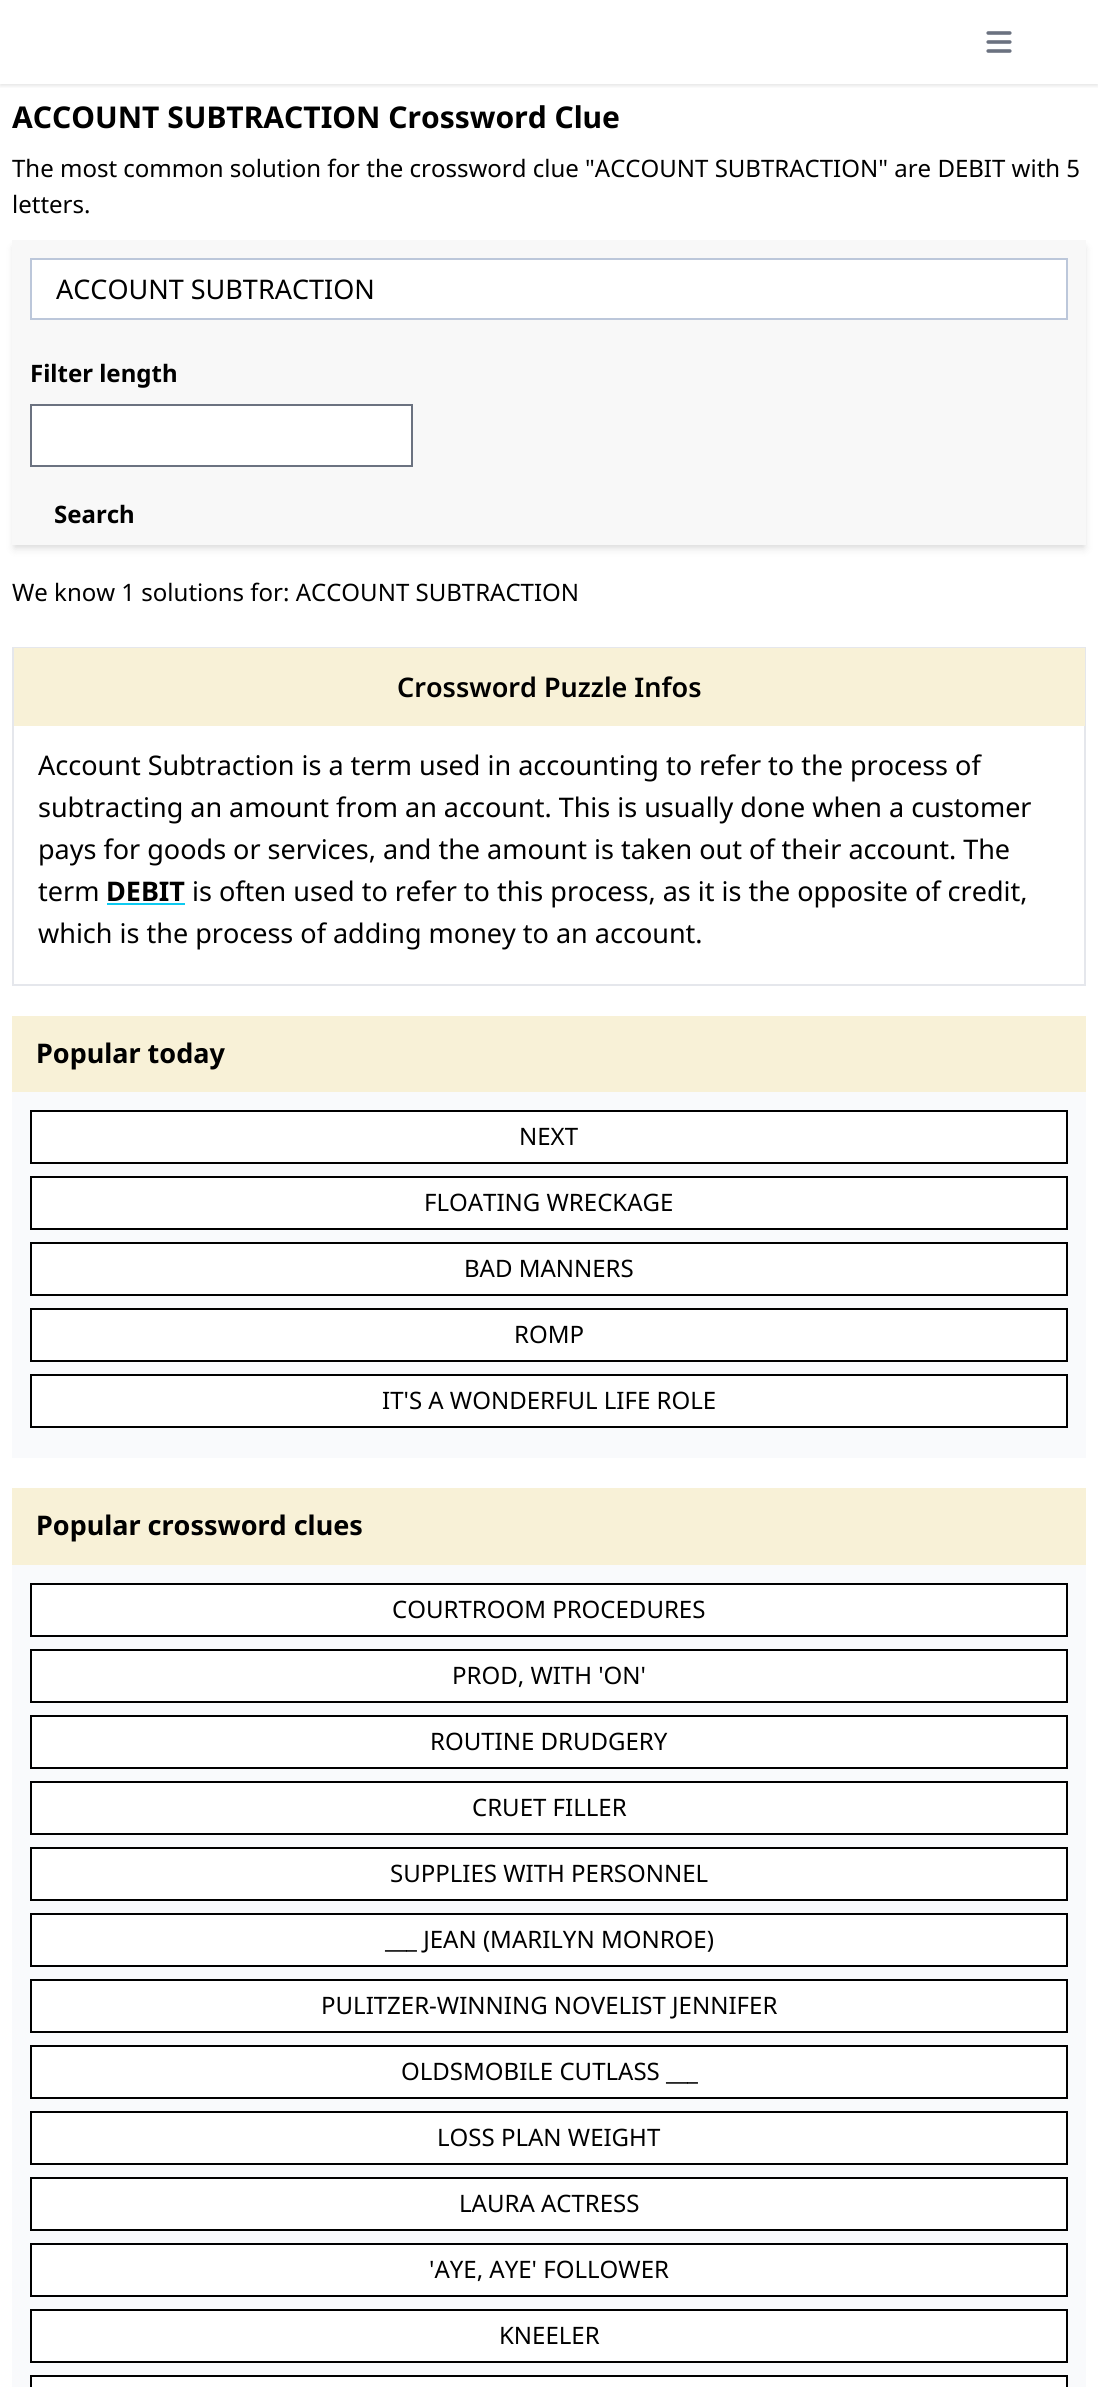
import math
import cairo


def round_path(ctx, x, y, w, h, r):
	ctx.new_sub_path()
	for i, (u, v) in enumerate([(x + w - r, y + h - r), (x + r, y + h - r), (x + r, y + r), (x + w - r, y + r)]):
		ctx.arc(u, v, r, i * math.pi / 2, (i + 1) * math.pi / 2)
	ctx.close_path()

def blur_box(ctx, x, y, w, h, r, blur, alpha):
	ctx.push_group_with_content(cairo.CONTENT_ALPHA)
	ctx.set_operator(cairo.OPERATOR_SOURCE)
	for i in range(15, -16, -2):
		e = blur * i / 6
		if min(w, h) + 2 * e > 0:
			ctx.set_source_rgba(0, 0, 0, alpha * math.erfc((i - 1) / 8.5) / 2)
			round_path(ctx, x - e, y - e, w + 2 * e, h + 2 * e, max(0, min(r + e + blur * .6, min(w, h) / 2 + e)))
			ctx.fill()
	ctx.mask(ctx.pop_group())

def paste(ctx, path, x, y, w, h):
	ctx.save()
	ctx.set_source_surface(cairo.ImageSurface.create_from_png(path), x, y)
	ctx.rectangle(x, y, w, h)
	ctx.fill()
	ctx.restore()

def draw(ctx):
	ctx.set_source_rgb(1, 1, 1)
	ctx.paint()
	ctx.save()
	ctx.rectangle(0, 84, 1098, 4)
	ctx.clip()
	ctx.set_source_rgb(0, 0, 0)
	blur_box(ctx, 0, 2, 1098, 84, 0, 2, 0.1)
	ctx.restore()
	paste(ctx, 'media/1.png', 986, 31, 26, 22)
	ctx.select_font_face('Noto Sans', cairo.FONT_SLANT_NORMAL, cairo.FONT_WEIGHT_BOLD)
	ctx.set_font_size(30)
	ctx.set_source_rgb(0, 0, 0)
	ctx.move_to(12, 128)
	ctx.show_text('ACCOUNT SUBTRACTION Crossword Clue')
	ctx.select_font_face('Noto Sans')
	ctx.set_font_size(24)
	ctx.move_to(12, 177)
	ctx.show_text('The most common solution for the crossword clue "ACCOUNT SUBTRACTION" are DEBIT with 5')
	ctx.move_to(12, 213)
	ctx.show_text('letters.')
	ctx.set_source_rgb(0, 0, 0)
	blur_box(ctx, 15, 246, 1068, 299, 0, 3, 0.1)
	blur_box(ctx, 14, 248, 1071, 301, 0, 4.5, 0.1)
	ctx.set_source_rgb(0.969, 0.969, 0.969)
	ctx.rectangle(12, 240, 1074, 305)
	ctx.fill()
	ctx.set_source_rgb(1, 1, 1)
	ctx.rectangle(31, 259, 1036, 60)
	ctx.fill_preserve()
	ctx.set_source_rgb(0.737, 0.78, 0.855)
	ctx.stroke()
	ctx.set_font_size(27)
	ctx.set_source_rgb(0, 0, 0)
	ctx.move_to(56, 299)
	ctx.show_text('ACCOUNT SUBTRACTION')
	ctx.select_font_face('Noto Sans', cairo.FONT_SLANT_NORMAL, cairo.FONT_WEIGHT_BOLD)
	ctx.set_font_size(24)
	ctx.move_to(30, 382)
	ctx.show_text('Filter length')
	ctx.set_source_rgb(1, 1, 1)
	ctx.rectangle(31, 405, 381, 61)
	ctx.fill_preserve()
	ctx.set_source_rgb(0.42, 0.447, 0.502)
	ctx.stroke()
	ctx.set_source_rgb(0, 0, 0)
	ctx.move_to(54, 523)
	ctx.show_text('Search')
	ctx.select_font_face('Noto Sans')
	ctx.move_to(12, 601)
	ctx.show_text('We know 1 solutions for: ACCOUNT SUBTRACTION')
	ctx.rectangle(13, 648, 1072, 337)
	ctx.set_source_rgb(0.898, 0.906, 0.922)
	ctx.stroke()
	ctx.set_source_rgb(0.969, 0.945, 0.843)
	ctx.rectangle(14, 648, 1071, 78)
	ctx.fill()
	ctx.select_font_face('Noto Sans SemiBold')
	ctx.set_font_size(27)
	ctx.set_source_rgb(0, 0, 0)
	ctx.move_to(397, 697)
	ctx.show_text('Crossword Puzzle Infos')
	ctx.select_font_face('Noto Sans')
	for x, y, s in [
		(38, 775, 'Account Subtraction is a term used in accounting to refer to the process of'),
		(38, 817, 'subtracting an amount from an account. This is usually done when a customer'),
		(38, 859, 'pays for goods or services, and the amount is taken out of their account. The'),
		(38, 901, 'term'),
	]:
		ctx.move_to(x, y)
		ctx.show_text(s)
	ctx.select_font_face('Noto Sans', cairo.FONT_SLANT_NORMAL, cairo.FONT_WEIGHT_BOLD)
	ctx.move_to(106, 901)
	ctx.show_text('DEBIT')
	ctx.set_source_rgb(0.051, 0.792, 0.941)
	ctx.rectangle(107, 903, 78, 2)
	ctx.fill()
	ctx.select_font_face('Noto Sans')
	ctx.set_source_rgb(0, 0, 0)
	ctx.move_to(192, 901)
	ctx.show_text('is often used to refer to this process, as it is the opposite of credit,')
	ctx.move_to(38, 943)
	ctx.show_text('which is the process of adding money to an account.')
	ctx.set_source_rgb(0.969, 0.945, 0.843)
	ctx.rectangle(12, 1016, 1074, 76)
	ctx.fill()
	ctx.select_font_face('Noto Sans', cairo.FONT_SLANT_NORMAL, cairo.FONT_WEIGHT_BOLD)
	ctx.set_source_rgb(0, 0, 0)
	ctx.move_to(36, 1063)
	ctx.show_text('Popular today')
	ctx.set_source_rgb(0.973, 0.98, 0.988)
	ctx.rectangle(12, 1092, 1074, 366)
	ctx.fill()
	ctx.set_source_rgb(1, 1, 1)
	ctx.rectangle(31, 1111, 1036, 52)
	ctx.fill_preserve()
	ctx.set_source_rgb(0, 0, 0)
	ctx.stroke()
	ctx.select_font_face('Noto Sans')
	ctx.set_font_size(24)
	ctx.move_to(519, 1145)
	ctx.show_text('NEXT')
	ctx.set_source_rgb(1, 1, 1)
	ctx.rectangle(31, 1177, 1036, 52)
	ctx.fill_preserve()
	ctx.set_source_rgb(0, 0, 0)
	ctx.stroke()
	ctx.move_to(424, 1211)
	ctx.show_text('FLOATING WRECKAGE')
	ctx.set_source_rgb(1, 1, 1)
	ctx.rectangle(31, 1243, 1036, 52)
	ctx.fill_preserve()
	ctx.set_source_rgb(0, 0, 0)
	ctx.stroke()
	ctx.move_to(464, 1277)
	ctx.show_text('BAD MANNERS')
	ctx.set_source_rgb(1, 1, 1)
	ctx.rectangle(31, 1309, 1036, 52)
	ctx.fill_preserve()
	ctx.set_source_rgb(0, 0, 0)
	ctx.stroke()
	ctx.move_to(514, 1343)
	ctx.show_text('ROMP')
	ctx.set_source_rgb(1, 1, 1)
	ctx.rectangle(31, 1375, 1036, 52)
	ctx.fill_preserve()
	ctx.set_source_rgb(0, 0, 0)
	ctx.stroke()
	ctx.move_to(382, 1409)
	ctx.show_text('IT\'S A WONDERFUL LIFE ROLE')
	ctx.set_source_rgb(0.969, 0.945, 0.843)
	ctx.rectangle(12, 1488, 1074, 77)
	ctx.fill()
	ctx.select_font_face('Noto Sans', cairo.FONT_SLANT_NORMAL, cairo.FONT_WEIGHT_BOLD)
	ctx.set_font_size(27)
	ctx.set_source_rgb(0, 0, 0)
	ctx.move_to(36, 1535)
	ctx.show_text('Popular crossword clues')
	ctx.set_source_rgb(0.973, 0.98, 0.988)
	ctx.rectangle(12, 1565, 1074, 822)
	ctx.fill()
	ctx.set_source_rgb(1, 1, 1)
	ctx.rectangle(31, 1584, 1036, 52)
	ctx.fill_preserve()
	ctx.set_source_rgb(0, 0, 0)
	ctx.stroke()
	ctx.select_font_face('Noto Sans')
	ctx.set_font_size(24)
	ctx.move_to(392, 1618)
	ctx.show_text('COURTROOM PROCEDURES')
	ctx.set_source_rgb(1, 1, 1)
	ctx.rectangle(31, 1650, 1036, 52)
	ctx.fill_preserve()
	ctx.set_source_rgb(0, 0, 0)
	ctx.stroke()
	ctx.move_to(452, 1684)
	ctx.show_text('PROD, WITH \'ON\'')
	ctx.set_source_rgb(1, 1, 1)
	ctx.rectangle(31, 1716, 1036, 52)
	ctx.fill_preserve()
	ctx.set_source_rgb(0, 0, 0)
	ctx.stroke()
	ctx.move_to(430, 1750)
	ctx.show_text('ROUTINE DRUDGERY')
	ctx.set_source_rgb(1, 1, 1)
	ctx.rectangle(31, 1782, 1036, 52)
	ctx.fill_preserve()
	ctx.set_source_rgb(0, 0, 0)
	ctx.stroke()
	ctx.move_to(472, 1816)
	ctx.show_text('CRUET FILLER')
	ctx.set_source_rgb(1, 1, 1)
	ctx.rectangle(31, 1848, 1036, 52)
	ctx.fill_preserve()
	ctx.set_source_rgb(0, 0, 0)
	ctx.stroke()
	ctx.move_to(390, 1882)
	ctx.show_text('SUPPLIES WITH PERSONNEL')
	ctx.set_source_rgb(1, 1, 1)
	ctx.rectangle(31, 1914, 1036, 52)
	ctx.fill_preserve()
	ctx.set_source_rgb(0, 0, 0)
	ctx.stroke()
	ctx.move_to(385, 1948)
	ctx.show_text('___ JEAN (MARILYN MONROE)')
	ctx.set_source_rgb(1, 1, 1)
	ctx.rectangle(31, 1980, 1036, 52)
	ctx.fill_preserve()
	ctx.set_source_rgb(0, 0, 0)
	ctx.stroke()
	ctx.move_to(321, 2014)
	ctx.show_text('PULITZER-WINNING NOVELIST JENNIFER')
	ctx.set_source_rgb(1, 1, 1)
	ctx.rectangle(31, 2046, 1036, 52)
	ctx.fill_preserve()
	ctx.set_source_rgb(0, 0, 0)
	ctx.stroke()
	ctx.move_to(401, 2080)
	ctx.show_text('OLDSMOBILE CUTLASS ___')
	ctx.set_source_rgb(1, 1, 1)
	ctx.rectangle(31, 2112, 1036, 52)
	ctx.fill_preserve()
	ctx.set_source_rgb(0, 0, 0)
	ctx.stroke()
	ctx.move_to(437, 2146)
	ctx.show_text('LOSS PLAN WEIGHT')
	ctx.set_source_rgb(1, 1, 1)
	ctx.rectangle(31, 2178, 1036, 52)
	ctx.fill_preserve()
	ctx.set_source_rgb(0, 0, 0)
	ctx.stroke()
	ctx.move_to(459, 2212)
	ctx.show_text('LAURA ACTRESS')
	ctx.set_source_rgb(1, 1, 1)
	ctx.rectangle(31, 2244, 1036, 52)
	ctx.fill_preserve()
	ctx.set_source_rgb(0, 0, 0)
	ctx.stroke()
	ctx.move_to(429, 2278)
	ctx.show_text('\'AYE, AYE\' FOLLOWER')
	ctx.set_source_rgb(1, 1, 1)
	ctx.rectangle(31, 2310, 1036, 52)
	ctx.fill_preserve()
	ctx.set_source_rgb(0, 0, 0)
	ctx.stroke()
	ctx.move_to(499, 2344)
	ctx.show_text('KNEELER')
	ctx.set_source_rgb(1, 1, 1)
	ctx.rectangle(31, 2376, 1036, 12)
	ctx.fill_preserve()
	ctx.set_source_rgb(0, 0, 0)
	ctx.stroke()


surface = cairo.ImageSurface(cairo.FORMAT_RGB24, 1098, 2387)
ctx = cairo.Context(surface)
options = cairo.FontOptions()
options.set_hint_metrics(cairo.HINT_METRICS_OFF)
options.set_hint_style(cairo.HINT_STYLE_NONE)
ctx.set_font_options(options)
ctx.set_miter_limit(4)
draw(ctx)
surface.write_to_png('image.png')
